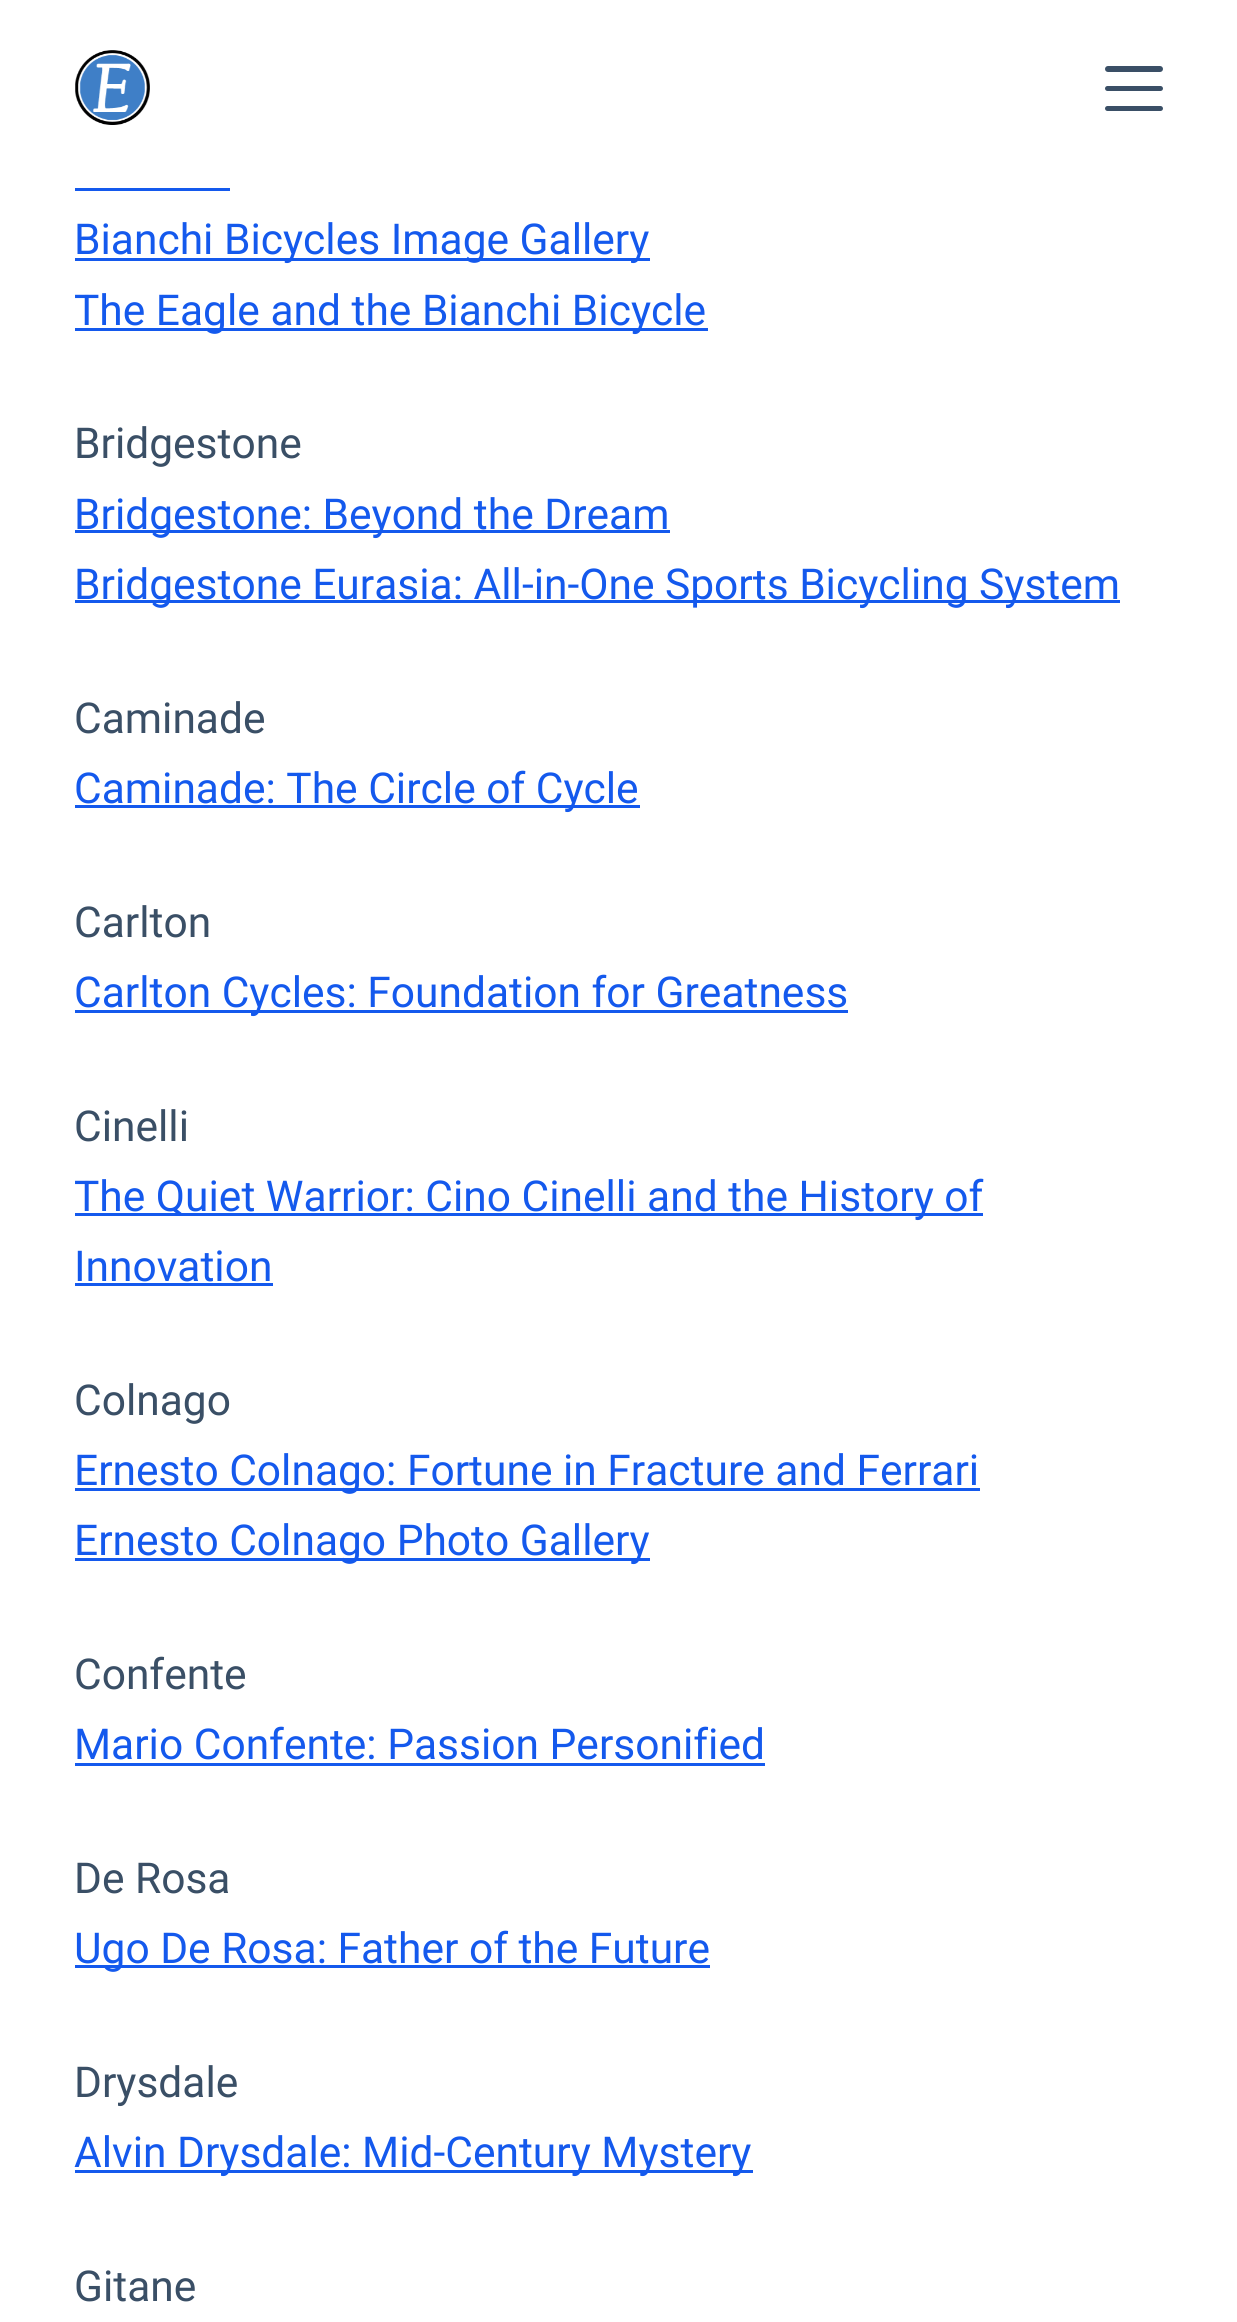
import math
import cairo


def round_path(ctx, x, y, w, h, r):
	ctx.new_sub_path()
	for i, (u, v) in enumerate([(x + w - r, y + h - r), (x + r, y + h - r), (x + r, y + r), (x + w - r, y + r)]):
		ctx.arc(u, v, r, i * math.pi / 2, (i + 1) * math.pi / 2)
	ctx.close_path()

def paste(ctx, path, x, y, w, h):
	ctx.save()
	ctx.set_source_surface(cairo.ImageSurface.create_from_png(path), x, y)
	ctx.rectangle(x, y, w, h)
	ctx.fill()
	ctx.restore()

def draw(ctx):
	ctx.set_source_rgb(1, 1, 1)
	ctx.paint()
	paste(ctx, 'media/1.png', 75, 50, 75, 75)
	ctx.set_source_rgb(0.227, 0.31, 0.4)
	round_path(ctx, 1105, 66, 58, 6, 3)
	ctx.fill()
	round_path(ctx, 1105, 86, 58, 5, 2.5)
	ctx.fill()
	round_path(ctx, 1105, 106, 58, 5, 2.5)
	ctx.fill()
	ctx.set_source_rgb(0.082, 0.349, 0.929)
	ctx.rectangle(75, 188, 155, 3)
	ctx.fill()
	ctx.rectangle(75, 258, 575, 3)
	ctx.fill()
	ctx.select_font_face('Roboto')
	ctx.set_font_size(42.5)
	ctx.move_to(74, 254)
	ctx.show_text('Bianchi Bicycles Image Gallery')
	ctx.rectangle(75, 328, 633, 3)
	ctx.fill()
	ctx.move_to(74, 325)
	ctx.show_text('The Eagle and the Bianchi Bicycle')
	ctx.set_source_rgb(0.227, 0.31, 0.4)
	ctx.move_to(74, 458)
	ctx.show_text('Bridgestone')
	ctx.set_source_rgb(0.082, 0.349, 0.929)
	ctx.rectangle(75, 530, 595, 3)
	ctx.fill()
	ctx.move_to(74, 529)
	ctx.show_text('Bridgestone: Beyond the Dream')
	ctx.rectangle(75, 600, 1045, 3)
	ctx.fill()
	ctx.move_to(74, 599)
	ctx.show_text('Bridgestone Eurasia: All-in-One Sports Bicycling System')
	ctx.set_source_rgb(0.227, 0.31, 0.4)
	ctx.move_to(74, 733)
	ctx.show_text('Caminade')
	ctx.set_source_rgb(0.082, 0.349, 0.929)
	ctx.rectangle(75, 805, 565, 3)
	ctx.fill()
	ctx.move_to(74, 803)
	ctx.show_text('Caminade: The Circle of Cycle')
	ctx.set_source_rgb(0.227, 0.31, 0.4)
	ctx.move_to(74, 937)
	ctx.show_text('Carlton')
	ctx.set_source_rgb(0.082, 0.349, 0.929)
	ctx.rectangle(75, 1010, 773, 3)
	ctx.fill()
	ctx.move_to(74, 1007)
	ctx.show_text('Carlton Cycles: Foundation for Greatness')
	ctx.set_source_rgb(0.227, 0.31, 0.4)
	ctx.move_to(74, 1141)
	ctx.show_text('Cinelli')
	ctx.set_source_rgb(0.082, 0.349, 0.929)
	ctx.rectangle(75, 1213, 908, 3)
	ctx.fill()
	ctx.move_to(74, 1211)
	ctx.show_text('The Quiet Warrior: Cino Cinelli and the History of')
	ctx.move_to(74, 1281)
	ctx.show_text('Innovation')
	ctx.rectangle(75, 1283, 198, 3)
	ctx.fill()
	ctx.set_source_rgb(0.227, 0.31, 0.4)
	ctx.move_to(74, 1415)
	ctx.show_text('Colnago')
	ctx.set_source_rgb(0.082, 0.349, 0.929)
	ctx.rectangle(75, 1488, 905, 3)
	ctx.fill()
	ctx.move_to(74, 1485)
	ctx.show_text('Ernesto Colnago: Fortune in Fracture and Ferrari')
	ctx.rectangle(75, 1558, 575, 3)
	ctx.fill()
	ctx.move_to(74, 1555)
	ctx.show_text('Ernesto Colnago Photo Gallery')
	ctx.set_source_rgb(0.227, 0.31, 0.4)
	ctx.move_to(74, 1689)
	ctx.show_text('Confente')
	ctx.set_source_rgb(0.082, 0.349, 0.929)
	ctx.move_to(74, 1759)
	ctx.show_text('Mario Confente: Passion Personified')
	ctx.rectangle(75, 1763, 690, 3)
	ctx.fill()
	ctx.set_source_rgb(0.227, 0.31, 0.4)
	ctx.move_to(74, 1893)
	ctx.show_text('De Rosa')
	ctx.set_source_rgb(0.082, 0.349, 0.929)
	ctx.rectangle(75, 1965, 635, 3)
	ctx.fill()
	ctx.move_to(74, 1963)
	ctx.show_text('Ugo De Rosa: Father of the Future')
	ctx.set_source_rgb(0.227, 0.31, 0.4)
	ctx.move_to(74, 2097)
	ctx.show_text('Drysdale')
	ctx.set_source_rgb(0.082, 0.349, 0.929)
	ctx.rectangle(75, 2170, 678, 3)
	ctx.fill()
	ctx.move_to(74, 2167)
	ctx.show_text('Alvin Drysdale: Mid-Century Mystery')
	ctx.set_source_rgb(0.227, 0.31, 0.4)
	ctx.move_to(74, 2301)
	ctx.show_text('Gitane')


surface = cairo.ImageSurface(cairo.FORMAT_RGB24, 1237, 2322)
ctx = cairo.Context(surface)
options = cairo.FontOptions()
options.set_hint_metrics(cairo.HINT_METRICS_OFF)
options.set_hint_style(cairo.HINT_STYLE_NONE)
ctx.set_font_options(options)
ctx.set_miter_limit(4)
draw(ctx)
surface.write_to_png('image.png')
